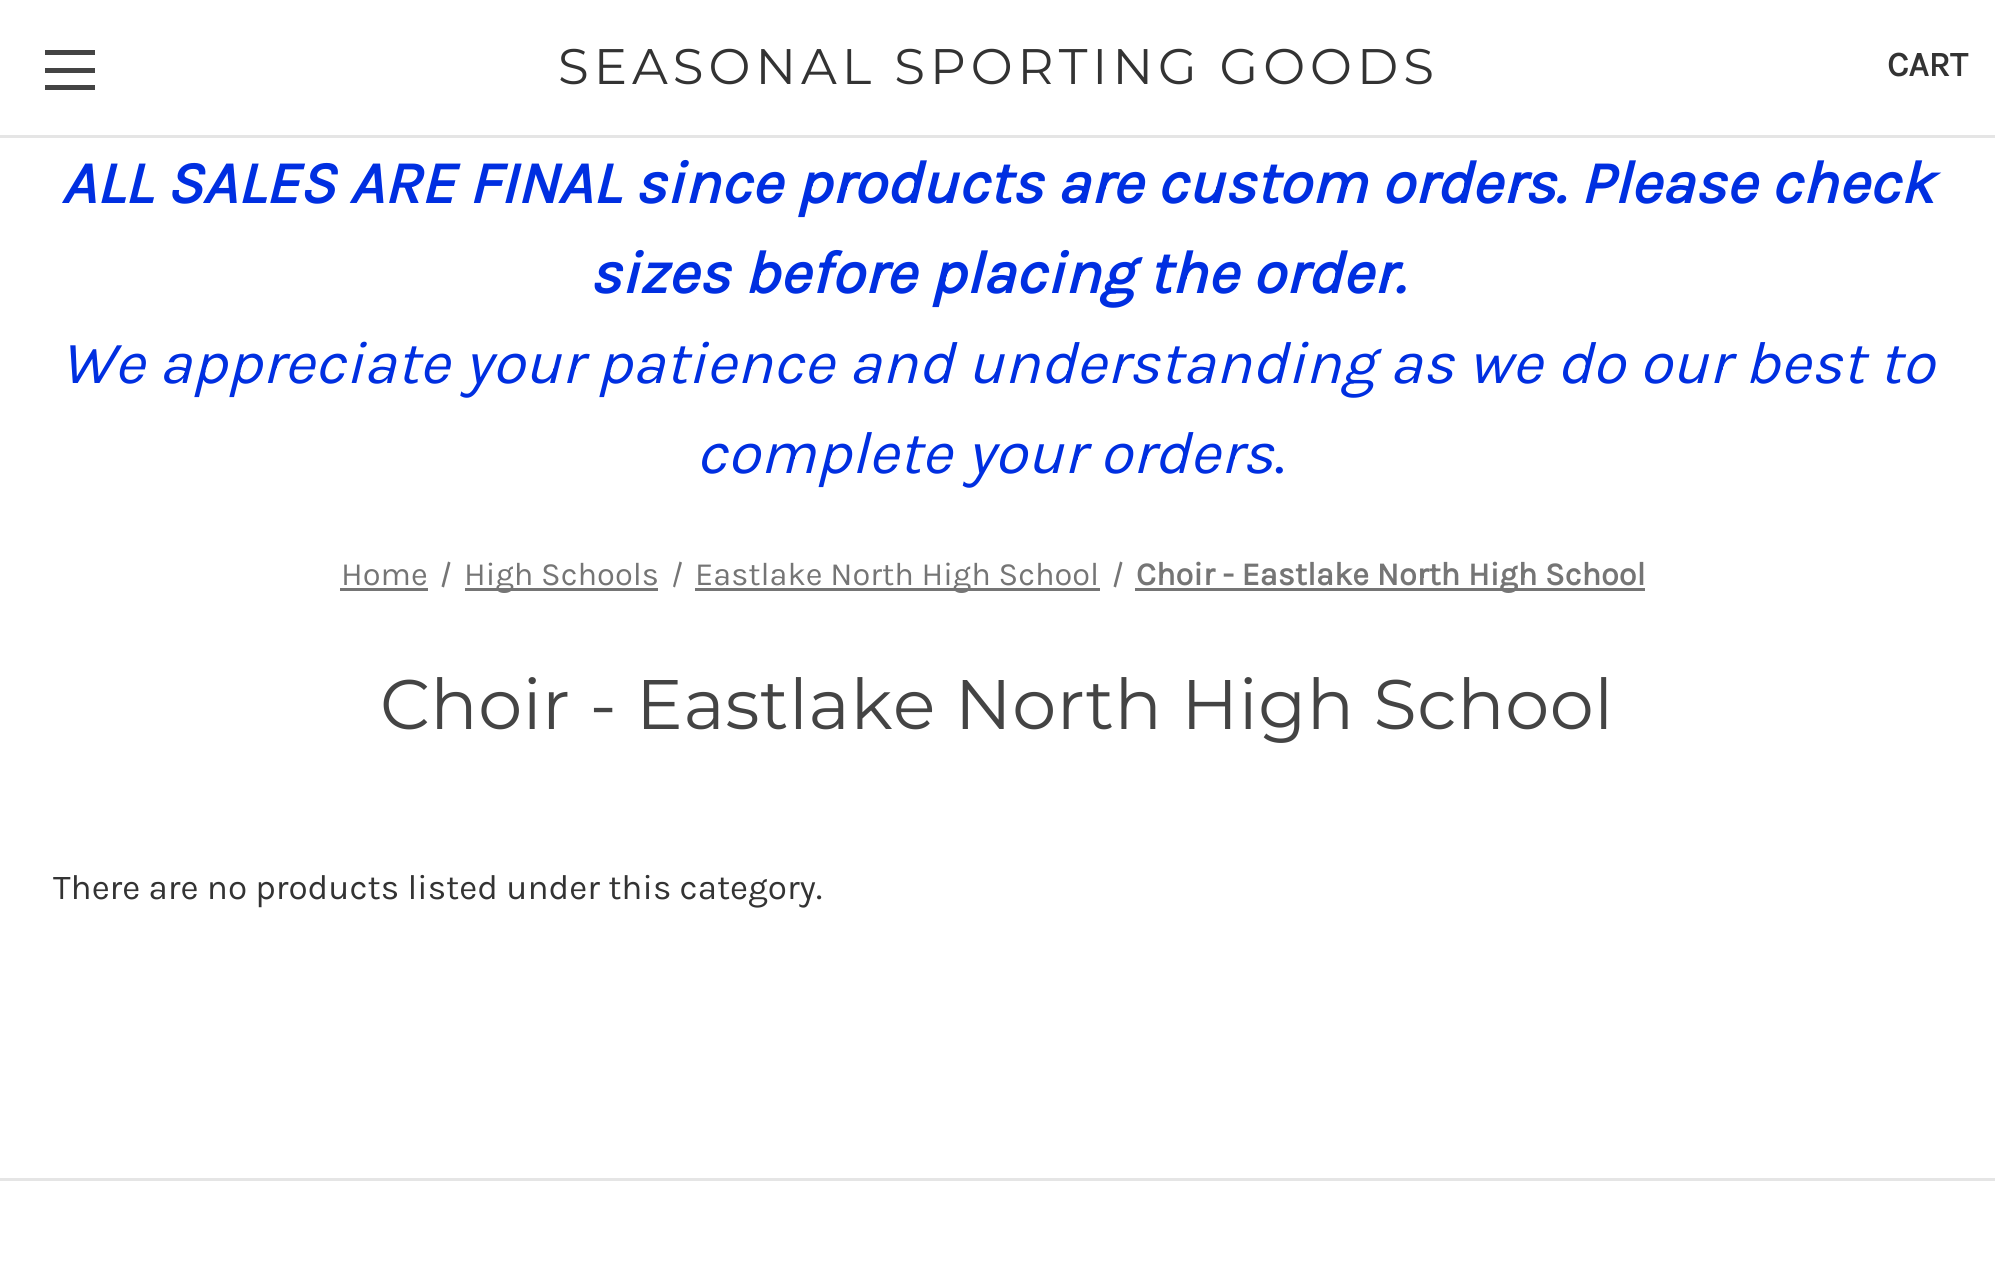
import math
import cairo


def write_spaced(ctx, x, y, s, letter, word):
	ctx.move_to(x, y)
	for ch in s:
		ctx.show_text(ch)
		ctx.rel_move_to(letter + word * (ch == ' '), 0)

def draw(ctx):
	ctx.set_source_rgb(1, 1, 1)
	ctx.paint()
	ctx.set_source_rgb(0.898, 0.898, 0.898)
	ctx.rectangle(0, 135, 1995, 3)
	ctx.fill()
	ctx.set_source_rgb(0.267, 0.267, 0.267)
	ctx.rectangle(45, 68, 50, 5)
	ctx.rectangle(45, 50, 50, 5)
	ctx.rectangle(45, 85, 50, 5)
	ctx.fill()
	ctx.select_font_face('Montserrat')
	ctx.set_font_size(49.9)
	ctx.set_source_rgb(0.2, 0.2, 0.2)
	write_spaced(ctx, 558, 84, 'SEASONAL SPORTING GOODS', 5, 0)
	ctx.select_font_face('Karla', cairo.FONT_SLANT_NORMAL, cairo.FONT_WEIGHT_BOLD)
	ctx.set_font_size(35)
	ctx.move_to(1887, 76)
	ctx.show_text('CART')
	ctx.select_font_face('Karla', cairo.FONT_SLANT_ITALIC, cairo.FONT_WEIGHT_BOLD)
	ctx.set_font_size(60)
	ctx.set_source_rgb(0, 0.184, 0.882)
	ctx.move_to(61, 203)
	ctx.show_text('ALL SALES ARE FINAL since products are custom orders. Please check')
	ctx.move_to(589, 293)
	ctx.show_text('sizes before placing the order.')
	ctx.select_font_face('Karla', cairo.FONT_SLANT_ITALIC)
	ctx.move_to(60, 383)
	ctx.show_text('We appreciate your patience and understanding as we do our best to')
	ctx.move_to(696, 473)
	ctx.show_text('complete your orders')
	ctx.select_font_face('Karla')
	ctx.move_to(1274, 473)
	ctx.show_text('.')
	ctx.set_font_size(32.5)
	ctx.set_source_rgb(0.459, 0.459, 0.459)
	ctx.move_to(341, 585)
	ctx.show_text('Home')
	ctx.rectangle(340, 588, 88, 3)
	ctx.fill()
	ctx.new_path()
	ctx.move_to(448, 561.5)
	ctx.line_to(450.5, 562.5)
	ctx.line_to(444, 587.5)
	ctx.line_to(441.5, 586.5)
	ctx.close_path()
	ctx.fill()
	ctx.rectangle(465, 588, 193, 3)
	ctx.fill()
	ctx.move_to(464, 585)
	ctx.show_text('High Schools')
	ctx.new_path()
	ctx.move_to(679.5, 561.5)
	ctx.line_to(682, 562.5)
	ctx.line_to(675, 587.5)
	ctx.line_to(673, 586.5)
	ctx.close_path()
	ctx.fill()
	ctx.rectangle(695, 588, 405, 3)
	ctx.fill()
	ctx.move_to(695, 585)
	ctx.show_text('Eastlake North High School')
	ctx.new_path()
	ctx.move_to(1120, 561.5)
	ctx.line_to(1122.5, 562.5)
	ctx.line_to(1116, 587.5)
	ctx.line_to(1113.5, 586.5)
	ctx.close_path()
	ctx.fill()
	ctx.rectangle(1135, 588, 510, 3)
	ctx.fill()
	ctx.select_font_face('Karla', cairo.FONT_SLANT_NORMAL, cairo.FONT_WEIGHT_BOLD)
	ctx.move_to(1136, 585)
	ctx.show_text('Choir - Eastlake North High School')
	ctx.select_font_face('Montserrat')
	ctx.set_font_size(70)
	ctx.set_source_rgb(0.267, 0.267, 0.267)
	write_spaced(ctx, 380, 729, 'Choir - Eastlake North High School', 0.6, 0)
	ctx.select_font_face('Karla')
	ctx.set_font_size(35)
	ctx.set_source_rgb(0.2, 0.2, 0.2)
	ctx.move_to(53, 899)
	ctx.show_text('There are no products listed under this category.')
	ctx.set_source_rgb(0.898, 0.898, 0.898)
	ctx.rectangle(0, 1178, 1995, 3)
	ctx.fill()


surface = cairo.ImageSurface(cairo.FORMAT_RGB24, 1995, 1284)
ctx = cairo.Context(surface)
options = cairo.FontOptions()
options.set_hint_metrics(cairo.HINT_METRICS_OFF)
options.set_hint_style(cairo.HINT_STYLE_NONE)
ctx.set_font_options(options)
ctx.set_miter_limit(4)
draw(ctx)
surface.write_to_png('image.png')
